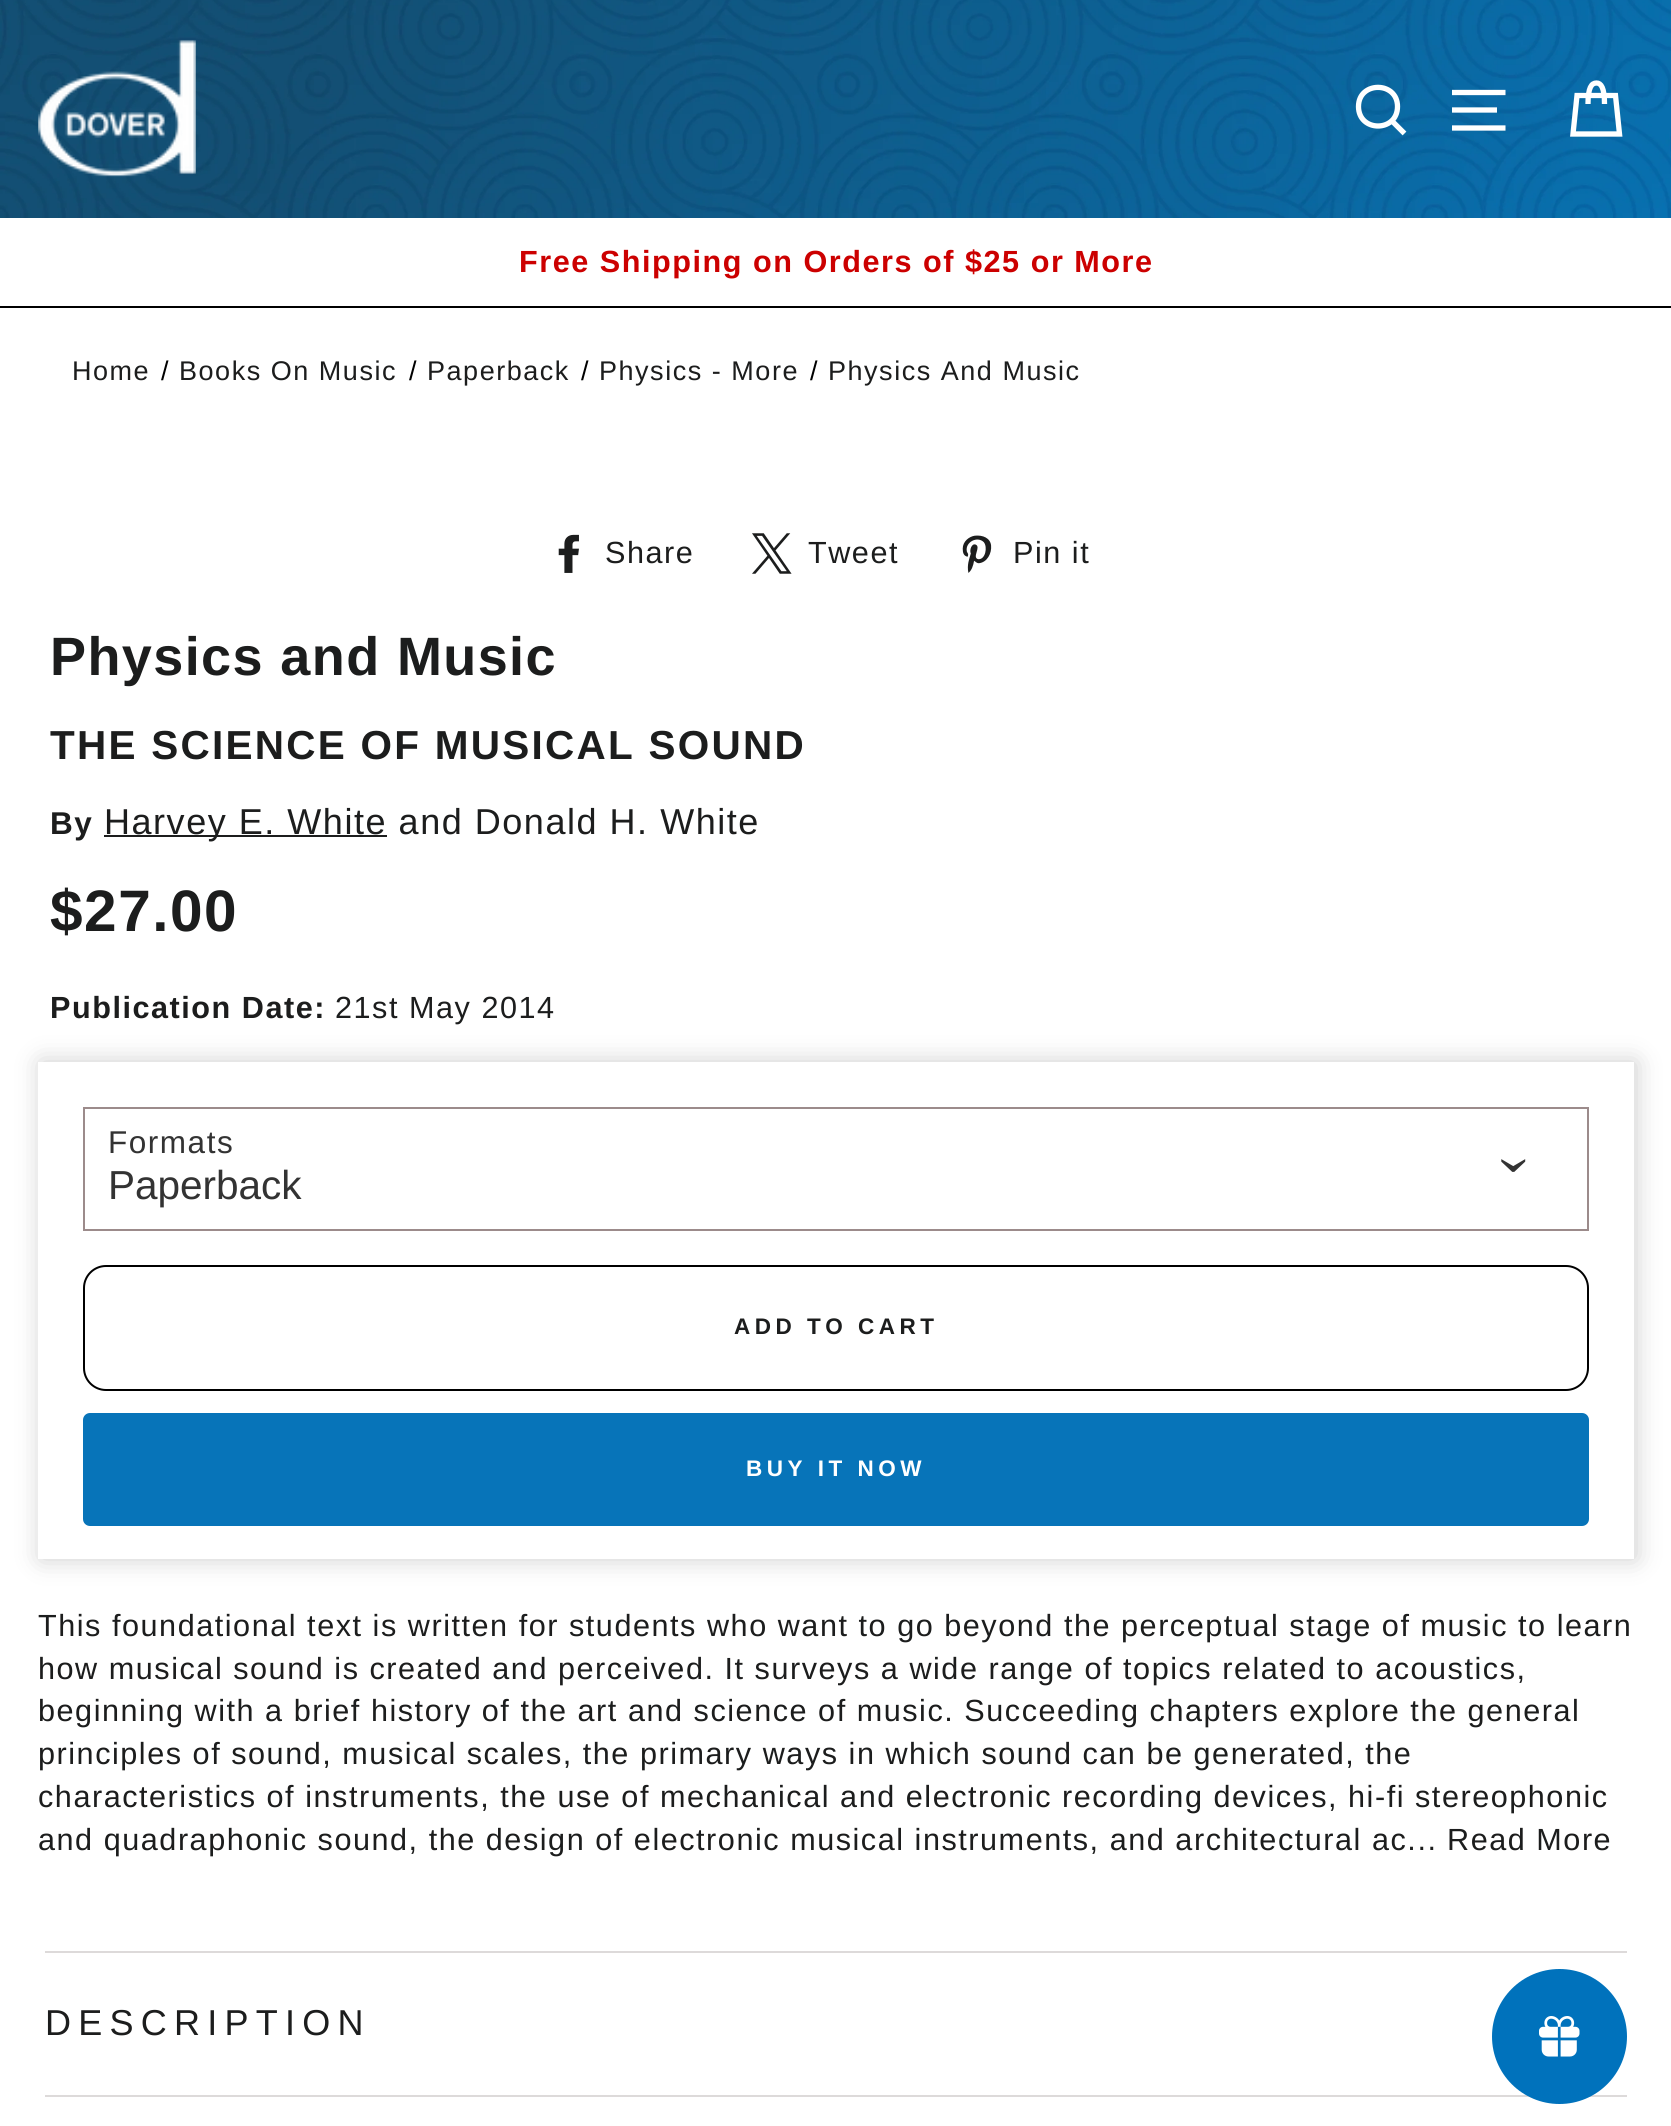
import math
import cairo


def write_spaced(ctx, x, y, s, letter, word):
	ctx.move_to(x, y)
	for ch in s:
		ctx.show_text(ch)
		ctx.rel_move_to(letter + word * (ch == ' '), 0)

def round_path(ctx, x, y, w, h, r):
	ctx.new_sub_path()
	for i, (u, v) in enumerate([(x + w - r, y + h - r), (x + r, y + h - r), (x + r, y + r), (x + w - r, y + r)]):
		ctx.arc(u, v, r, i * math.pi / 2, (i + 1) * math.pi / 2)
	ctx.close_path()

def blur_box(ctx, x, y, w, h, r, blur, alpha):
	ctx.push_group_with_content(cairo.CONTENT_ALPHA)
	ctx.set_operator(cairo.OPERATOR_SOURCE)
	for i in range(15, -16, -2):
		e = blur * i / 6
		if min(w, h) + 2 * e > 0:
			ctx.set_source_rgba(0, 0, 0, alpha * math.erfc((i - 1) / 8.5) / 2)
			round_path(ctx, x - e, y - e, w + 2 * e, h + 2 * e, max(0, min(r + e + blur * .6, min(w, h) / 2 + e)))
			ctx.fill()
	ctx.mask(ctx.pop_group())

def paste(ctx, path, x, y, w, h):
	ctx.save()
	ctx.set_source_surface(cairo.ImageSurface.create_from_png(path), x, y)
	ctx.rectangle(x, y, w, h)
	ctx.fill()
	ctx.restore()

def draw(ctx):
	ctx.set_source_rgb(1, 1, 1)
	ctx.paint()
	paste(ctx, 'media/1.png', 0, 0, 1671, 218)
	paste(ctx, 'media/2.png', 38, 40, 158, 137)
	ctx.new_path()
	ctx.move_to(1397.5, 106.5)
	ctx.curve_to(1397.5, 132.5, 1358.5, 132.5, 1358.5, 106.5)
	ctx.curve_to(1358.5, 81, 1397.5, 81, 1397.5, 106.5)
	ctx.close_path()
	ctx.move_to(1404.5, 133.5)
	ctx.line_to(1392, 121)
	ctx.set_source_rgb(1, 1, 1)
	ctx.set_line_width(5.3)
	ctx.stroke()
	ctx.new_path()
	ctx.move_to(1452, 92.5)
	ctx.line_to(1505.5, 92.5)
	ctx.move_to(1452, 110)
	ctx.line_to(1497, 110)
	ctx.move_to(1452, 128)
	ctx.line_to(1505.5, 128)
	ctx.stroke()
	ctx.new_path()
	ctx.move_to(1588, 104)
	ctx.curve_to(1588, 87.5, 1591.5, 83, 1596.5, 83)
	ctx.curve_to(1601, 83, 1604.5, 87.5, 1604.5, 104)
	ctx.move_to(1577, 95.5)
	ctx.line_to(1615.5, 95.5)
	ctx.line_to(1619.5, 134)
	ctx.line_to(1573, 134)
	ctx.close_path()
	ctx.stroke()
	ctx.set_source_rgb(0, 0, 0)
	ctx.rectangle(0, 306, 1671, 2)
	ctx.fill()
	ctx.select_font_face('Arimo', cairo.FONT_SLANT_NORMAL, cairo.FONT_WEIGHT_BOLD)
	ctx.set_font_size(30.6)
	ctx.set_source_rgb(0.8, 0, 0)
	write_spaced(ctx, 519, 272, 'Free Shipping on Orders of $25 or More', 1.53, 0)
	ctx.select_font_face('Arimo')
	ctx.set_font_size(27)
	ctx.set_source_rgb(0.11, 0.114, 0.114)
	write_spaced(ctx, 72, 380, 'Home', 1.53, 0)
	ctx.set_source_rgb(0, 0, 0)
	write_spaced(ctx, 161, 380, '/', 1.53, 0)
	ctx.set_source_rgb(0.11, 0.114, 0.114)
	write_spaced(ctx, 179, 380, 'Books On Music', 1.53, 0)
	ctx.set_source_rgb(0, 0, 0)
	write_spaced(ctx, 409, 380, '/', 1.53, 0)
	ctx.set_source_rgb(0.11, 0.114, 0.114)
	write_spaced(ctx, 427, 380, 'Paperback', 1.53, 0)
	ctx.set_source_rgb(0, 0, 0)
	write_spaced(ctx, 581, 380, '/', 1.53, 0)
	ctx.set_source_rgb(0.11, 0.114, 0.114)
	write_spaced(ctx, 599, 380, 'Physics - More', 1.53, 0)
	ctx.set_source_rgb(0, 0, 0)
	write_spaced(ctx, 810, 380, '/', 1.53, 0)
	ctx.set_source_rgb(0.11, 0.114, 0.114)
	write_spaced(ctx, 828, 380, 'Physics And Music', 1.53, 0)
	paste(ctx, 'media/3.png', 558, 534, 21, 39)
	ctx.set_font_size(30.6)
	write_spaced(ctx, 605, 563, 'Share', 1.53, 0)
	paste(ctx, 'media/4.png', 752, 533, 40, 41)
	write_spaced(ctx, 808, 563, 'Tweet', 1.53, 0)
	paste(ctx, 'media/5.png', 962, 535, 30, 38)
	write_spaced(ctx, 1013, 563, 'Pin it', 1.53, 0)
	ctx.select_font_face('Liberation Sans', cairo.FONT_SLANT_NORMAL, cairo.FONT_WEIGHT_BOLD)
	ctx.set_font_size(54)
	write_spaced(ctx, 50, 675, 'Physics and Music', 1.4, 0)
	ctx.set_font_size(40.5)
	write_spaced(ctx, 50, 759, 'THE SCIENCE OF MUSICAL SOUND', 2.25, 0)
	ctx.select_font_face('Arimo', cairo.FONT_SLANT_NORMAL, cairo.FONT_WEIGHT_BOLD)
	ctx.set_font_size(31.5)
	write_spaced(ctx, 50, 834, 'By', 1.53, 0)
	ctx.rectangle(104, 835, 283, 2)
	ctx.fill()
	ctx.select_font_face('Arimo')
	ctx.set_font_size(36)
	write_spaced(ctx, 104, 834, 'Harvey E. White and Donald H. White', 1.53, 0)
	ctx.select_font_face('Arimo', cairo.FONT_SLANT_NORMAL, cairo.FONT_WEIGHT_BOLD)
	ctx.set_font_size(58.5)
	write_spaced(ctx, 50, 931, '$27.00', 1.53, 0)
	ctx.set_font_size(30.6)
	write_spaced(ctx, 50, 1018, 'Publication Date:', 1.53, 0)
	ctx.select_font_face('Arimo')
	write_spaced(ctx, 335, 1018, '21st May 2014', 1.53, 0)
	ctx.set_source_rgb(0, 0, 0)
	blur_box(ctx, 41, 1062, 1595, 497, 0, 12.5, 0.2)
	ctx.set_source_rgb(1, 1, 1)
	ctx.rectangle(38, 1062, 1596, 497)
	ctx.fill()
	ctx.rectangle(84, 1108, 1504, 122)
	ctx.set_source_rgb(0.612, 0.545, 0.545)
	ctx.set_line_width(2)
	ctx.stroke()
	ctx.set_font_size(31.5)
	ctx.set_source_rgb(0.2, 0.2, 0.2)
	write_spaced(ctx, 108, 1153, 'Formats', 1.53, 0)
	ctx.select_font_face('Liberation Serif')
	ctx.set_font_size(63)
	ctx.save()
	ctx.translate(1499, 1155)
	ctx.rotate(90 * math.pi / 180)
	ctx.move_to(0, 0)
	ctx.show_text('›')
	ctx.restore()
	ctx.select_font_face('Arimo')
	ctx.set_font_size(40.5)
	ctx.move_to(108, 1199)
	ctx.show_text('Paperback')
	round_path(ctx, 84, 1266, 1504, 124, 22)
	ctx.set_source_rgb(0, 0, 0)
	ctx.stroke()
	ctx.select_font_face('Arimo', cairo.FONT_SLANT_NORMAL, cairo.FONT_WEIGHT_BOLD)
	ctx.set_font_size(22.5)
	ctx.set_source_rgb(0.11, 0.114, 0.114)
	write_spaced(ctx, 734, 1334, 'ADD TO CART', 4.5, 0)
	ctx.set_source_rgb(0.031, 0.455, 0.725)
	round_path(ctx, 83, 1413, 1506, 113, 7)
	ctx.fill()
	ctx.set_source_rgb(1, 1, 1)
	write_spaced(ctx, 746, 1476, 'BUY IT NOW', 4.5, 0)
	ctx.select_font_face('Arimo')
	ctx.set_font_size(30.6)
	ctx.set_source_rgb(0.11, 0.114, 0.114)
	for x, y, s in [
		(38, 1636, 'This foundational text is written for students who want to go beyond the perceptual stage of music to learn'),
		(38, 1679, 'how musical sound is created and perceived. It surveys a wide range of topics related to acoustics,'),
		(38, 1721, 'beginning with a brief history of the art and science of music. Succeeding chapters explore the general'),
		(38, 1764, 'principles of sound, musical scales, the primary ways in which sound can be generated, the'),
		(38, 1807, 'characteristics of instruments, the use of mechanical and electronic recording devices, hi-fi stereophonic'),
		(38, 1850, 'and quadraphonic sound, the design of electronic musical instruments, and architectural ac...'),
		(1447, 1850, 'Read More'),
	]:
		write_spaced(ctx, x, y, s, 1.53, 0)
	ctx.set_source_rgb(0.867, 0.855, 0.855)
	ctx.rectangle(45, 1951, 1582, 2)
	ctx.fill()
	ctx.rectangle(45, 2095, 1582, 2)
	ctx.fill()
	ctx.set_font_size(36)
	ctx.set_source_rgb(0.11, 0.114, 0.114)
	write_spaced(ctx, 45, 2035, 'DESCRIPTION', 7.25, 0)
	ctx.set_source_rgb(0, 0.447, 0.737)
	ctx.new_path()
	ctx.arc(1559.5, 2036.5, 67.5, 0, 2 * math.pi)
	ctx.fill()
	paste(ctx, 'media/6.png', 1539, 2016, 41, 41)


surface = cairo.ImageSurface(cairo.FORMAT_RGB24, 1671, 2126)
ctx = cairo.Context(surface)
options = cairo.FontOptions()
options.set_hint_metrics(cairo.HINT_METRICS_OFF)
options.set_hint_style(cairo.HINT_STYLE_NONE)
ctx.set_font_options(options)
ctx.set_miter_limit(4)
draw(ctx)
surface.write_to_png('image.png')
